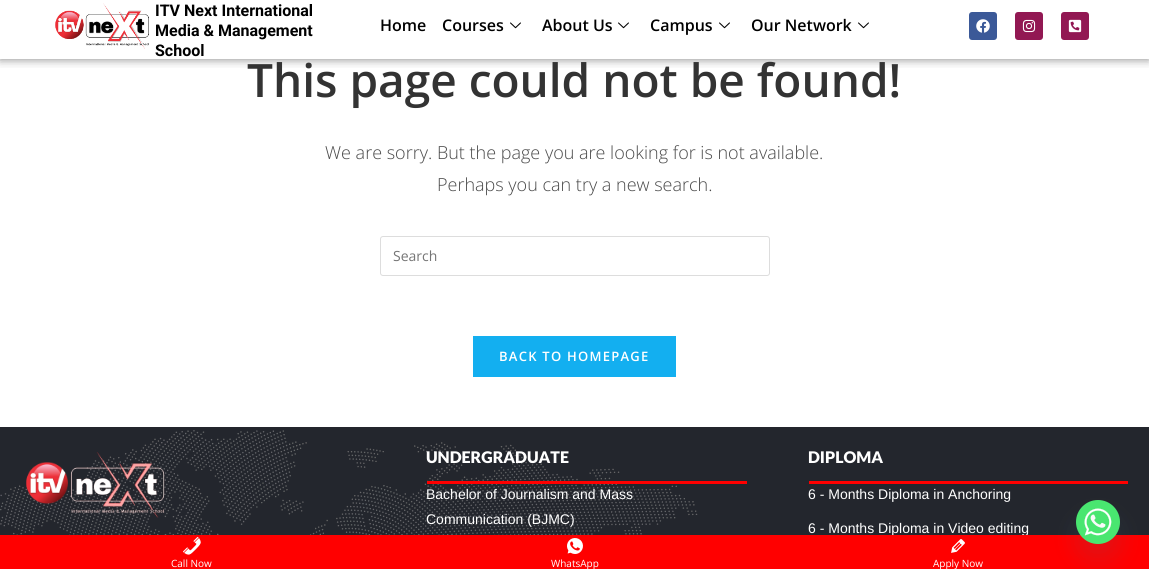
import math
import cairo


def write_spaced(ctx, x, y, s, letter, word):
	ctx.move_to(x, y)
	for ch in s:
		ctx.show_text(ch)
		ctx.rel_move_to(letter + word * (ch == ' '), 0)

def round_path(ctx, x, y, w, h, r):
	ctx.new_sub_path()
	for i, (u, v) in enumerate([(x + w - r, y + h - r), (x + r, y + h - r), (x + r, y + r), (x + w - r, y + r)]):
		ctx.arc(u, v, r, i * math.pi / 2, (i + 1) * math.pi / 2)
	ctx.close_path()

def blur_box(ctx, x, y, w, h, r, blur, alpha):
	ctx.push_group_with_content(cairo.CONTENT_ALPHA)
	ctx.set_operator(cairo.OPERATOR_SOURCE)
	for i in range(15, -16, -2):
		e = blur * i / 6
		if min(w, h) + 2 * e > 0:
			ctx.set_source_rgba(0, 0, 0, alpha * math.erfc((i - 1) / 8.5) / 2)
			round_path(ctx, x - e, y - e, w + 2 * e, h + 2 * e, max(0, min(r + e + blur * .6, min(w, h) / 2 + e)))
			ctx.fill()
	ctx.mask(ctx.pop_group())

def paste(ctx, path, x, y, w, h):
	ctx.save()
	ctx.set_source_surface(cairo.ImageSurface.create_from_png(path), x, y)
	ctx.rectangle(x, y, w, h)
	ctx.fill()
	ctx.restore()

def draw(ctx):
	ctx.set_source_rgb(1, 1, 1)
	ctx.paint()
	ctx.save()
	ctx.rectangle(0, 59, 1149, 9)
	ctx.clip()
	ctx.set_source_rgb(0, 0, 0)
	blur_box(ctx, 0, 0, 1149, 59, 0, 5, 0.5)
	ctx.restore()
	paste(ctx, 'media/1.png', 55, 3, 94, 46)
	ctx.select_font_face('Roboto', cairo.FONT_SLANT_NORMAL, cairo.FONT_WEIGHT_BOLD)
	ctx.set_font_size(16)
	ctx.set_source_rgb(0, 0, 0)
	for x, y, s in [
		(155, 16, 'ITV Next International'),
		(155, 36, 'Media & Management'),
		(155, 56, 'School'),
	]:
		ctx.move_to(x, y)
		ctx.show_text(s)
	ctx.select_font_face('Open Sans SemiBold')
	ctx.move_to(380, 31)
	ctx.show_text('Home')
	ctx.move_to(442, 31)
	ctx.show_text('Courses')
	paste(ctx, 'media/2.png', 510, 22, 11, 7)
	ctx.move_to(542, 31)
	ctx.show_text('About Us')
	paste(ctx, 'media/2.png', 618, 22, 11, 7)
	ctx.move_to(650, 31)
	ctx.show_text('Campus')
	paste(ctx, 'media/2.png', 719, 22, 11, 7)
	ctx.move_to(751, 31)
	ctx.show_text('Our Network')
	paste(ctx, 'media/2.png', 858, 22, 11, 7)
	ctx.set_source_rgb(0.231, 0.349, 0.596)
	round_path(ctx, 969, 12, 28, 28, 3)
	ctx.fill()
	paste(ctx, 'media/3.png', 976, 19, 14, 14)
	ctx.set_source_rgb(0.573, 0.094, 0.325)
	round_path(ctx, 1015, 12, 28, 28, 3)
	ctx.fill()
	paste(ctx, 'media/4.png', 1022, 19, 14, 14)
	round_path(ctx, 1061, 12, 28, 28, 3)
	ctx.fill()
	paste(ctx, 'media/5.png', 1068, 19, 14, 14)
	ctx.set_font_size(46)
	ctx.set_source_rgb(0.2, 0.2, 0.2)
	ctx.move_to(247, 97)
	ctx.show_text('This page could not be found!')
	ctx.select_font_face('Open Sans Light')
	ctx.set_font_size(18)
	ctx.set_source_rgb(0.29, 0.29, 0.29)
	ctx.move_to(325, 159)
	ctx.show_text('We are sorry. But the page you are looking for is not available.')
	ctx.move_to(437, 191)
	ctx.show_text('Perhaps you can try a new search.')
	round_path(ctx, 380.5, 236.5, 389, 39, 2.5)
	ctx.set_source_rgb(0.867, 0.867, 0.867)
	ctx.set_line_width(1)
	ctx.stroke()
	ctx.select_font_face('Open Sans')
	ctx.set_font_size(14)
	ctx.set_source_rgb(0.459, 0.459, 0.459)
	ctx.move_to(393, 261)
	ctx.show_text('Search')
	ctx.set_source_rgb(0.075, 0.686, 0.941)
	ctx.rectangle(473, 336, 203, 41)
	ctx.fill()
	ctx.select_font_face('Open Sans SemiBold')
	ctx.set_font_size(13)
	ctx.set_source_rgb(1, 1, 1)
	write_spaced(ctx, 499, 361, 'BACK TO HOMEPAGE', 1.25, 0)
	ctx.set_source_rgb(0.137, 0.149, 0.176)
	ctx.rectangle(0, 427, 1149, 108)
	ctx.fill()
	paste(ctx, 'media/6.png', 0, 430, 698, 105)
	paste(ctx, 'media/7.png', 26, 452, 139, 66)
	ctx.set_source_rgb(1, 0, 0)
	ctx.rectangle(427, 481, 320, 3)
	ctx.fill()
	ctx.select_font_face('Lato Black')
	ctx.set_font_size(16)
	ctx.set_source_rgb(1, 1, 1)
	ctx.move_to(426, 463)
	ctx.show_text('UNDERGRADUATE')
	ctx.select_font_face('Liberation Sans')
	ctx.set_font_size(14)
	ctx.move_to(426, 499)
	ctx.show_text('Bachelor of Journalism and Mass')
	ctx.move_to(426, 524)
	ctx.show_text('Communication (BJMC)')
	ctx.set_source_rgb(1, 0, 0)
	ctx.rectangle(809, 481, 319, 3)
	ctx.fill()
	ctx.select_font_face('Lato Black')
	ctx.set_font_size(16)
	ctx.set_source_rgb(1, 1, 1)
	ctx.move_to(808, 463)
	ctx.show_text('DIPLOMA')
	ctx.select_font_face('Liberation Sans')
	ctx.set_font_size(14)
	ctx.move_to(808, 499)
	ctx.show_text('6 - Months Diploma in Anchoring')
	ctx.move_to(808, 533)
	ctx.show_text('6 - Months Diploma in Video editing')
	ctx.set_source_rgb(1, 0, 0)
	ctx.rectangle(0, 535, 1149, 34)
	ctx.fill()
	ctx.set_source_rgb(0.286, 0.408, 0.494)
	blur_box(ctx, 1076, 516, 44, 44, 22, 12, 0.16)
	paste(ctx, 'media/8.png', 1076, 500, 44, 44)
	paste(ctx, 'media/9.png', 183, 536, 18, 19)
	ctx.select_font_face('Open Sans')
	ctx.set_font_size(10)
	ctx.set_source_rgb(1, 1, 1)
	ctx.move_to(171, 567)
	ctx.show_text('Call Now')
	paste(ctx, 'media/10.png', 567, 538, 16, 16)
	ctx.move_to(551, 567)
	ctx.show_text('WhatsApp')
	paste(ctx, 'media/11.png', 951, 539, 14, 14)
	ctx.move_to(933, 567)
	ctx.show_text('Apply Now')


surface = cairo.ImageSurface(cairo.FORMAT_RGB24, 1149, 569)
ctx = cairo.Context(surface)
options = cairo.FontOptions()
options.set_hint_metrics(cairo.HINT_METRICS_OFF)
options.set_hint_style(cairo.HINT_STYLE_NONE)
ctx.set_font_options(options)
ctx.set_miter_limit(4)
draw(ctx)
surface.write_to_png('image.png')
